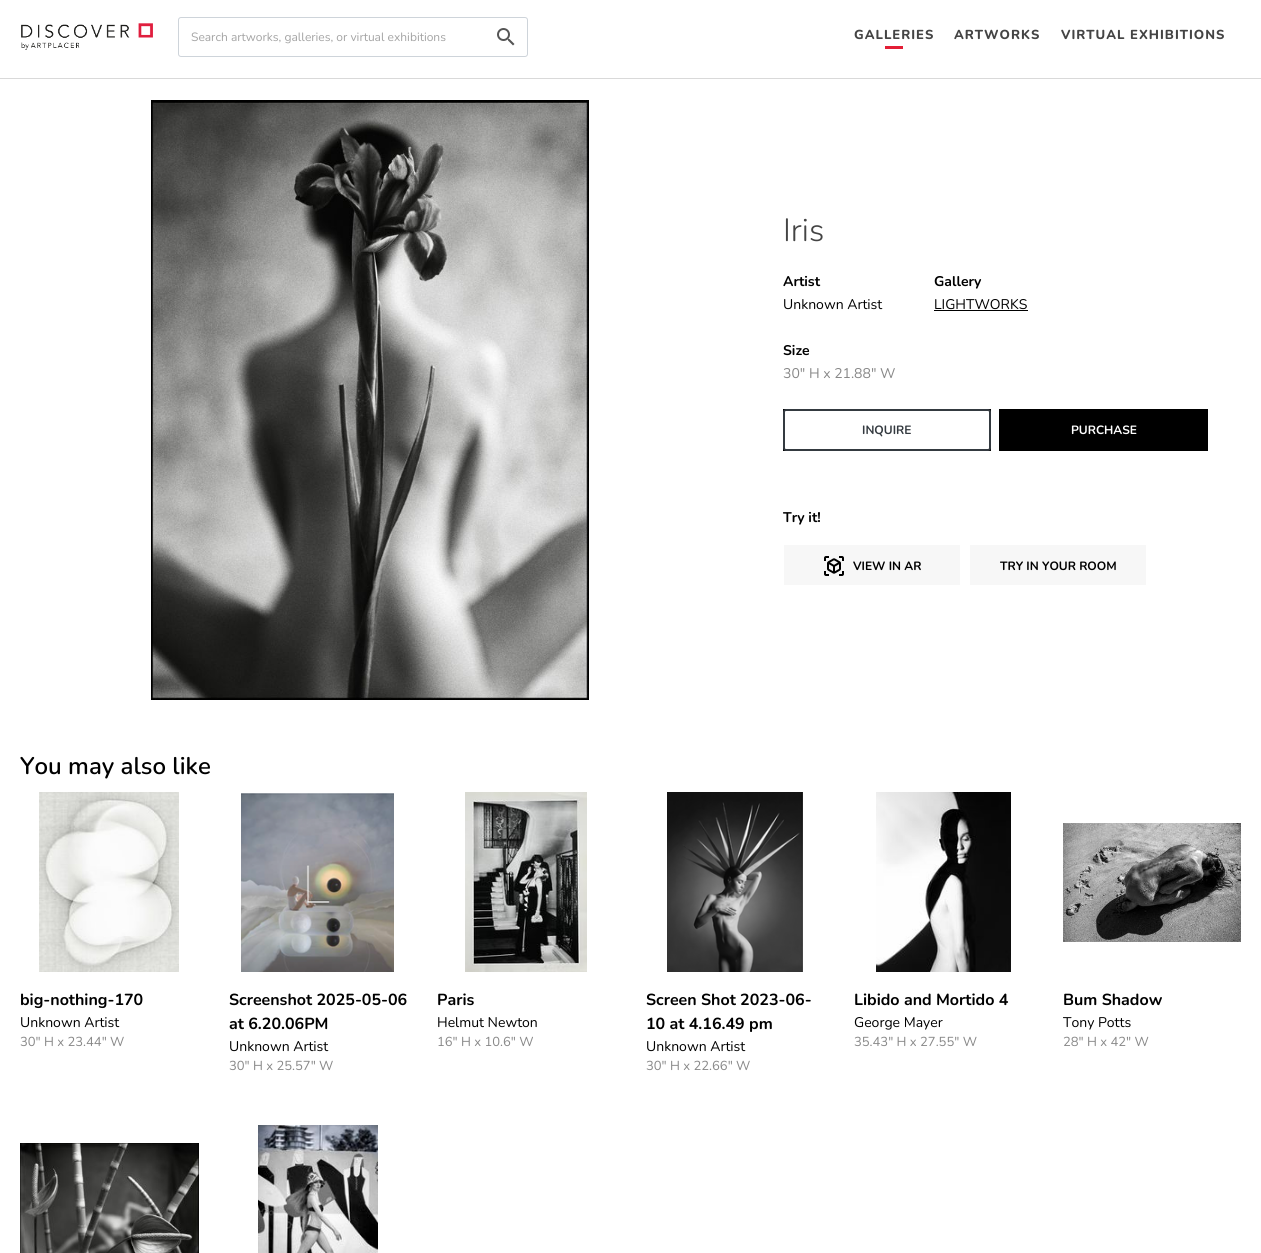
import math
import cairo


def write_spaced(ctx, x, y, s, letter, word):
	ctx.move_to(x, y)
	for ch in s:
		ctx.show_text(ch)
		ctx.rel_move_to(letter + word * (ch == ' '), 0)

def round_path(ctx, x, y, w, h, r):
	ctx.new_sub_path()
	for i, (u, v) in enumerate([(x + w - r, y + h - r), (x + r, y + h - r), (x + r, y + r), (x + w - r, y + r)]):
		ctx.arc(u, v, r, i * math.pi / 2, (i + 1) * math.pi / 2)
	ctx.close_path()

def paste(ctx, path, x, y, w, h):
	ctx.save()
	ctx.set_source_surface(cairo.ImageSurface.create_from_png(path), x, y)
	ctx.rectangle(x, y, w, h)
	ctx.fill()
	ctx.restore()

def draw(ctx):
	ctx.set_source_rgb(1, 1, 1)
	ctx.paint()
	ctx.set_source_rgb(0.851, 0.851, 0.851)
	ctx.rectangle(0, 78, 1261, 1)
	ctx.fill()
	paste(ctx, 'media/1.png', 21, 23, 132, 27)
	round_path(ctx, 178.5, 17.5, 349, 39, 2.5)
	ctx.set_source_rgb(0.808, 0.831, 0.855)
	ctx.set_line_width(1)
	ctx.stroke()
	ctx.select_font_face('Nunito')
	ctx.set_font_size(12)
	ctx.set_source_rgb(0.643, 0.643, 0.643)
	ctx.move_to(191, 41)
	ctx.show_text('Search artworks, galleries, or virtual exhibitions')
	paste(ctx, 'media/2.png', 497, 28, 18, 18)
	ctx.select_font_face('Nunito ExtraBold')
	ctx.set_font_size(13)
	ctx.set_source_rgb(0.267, 0.267, 0.267)
	write_spaced(ctx, 854, 39, 'GALLERIES', 1, 0)
	ctx.set_source_rgb(0.89, 0.118, 0.212)
	ctx.rectangle(885, 46, 18, 3)
	ctx.fill()
	ctx.set_source_rgb(0.267, 0.267, 0.267)
	write_spaced(ctx, 954, 39, 'ARTWORKS', 1, 0)
	write_spaced(ctx, 1061, 39, 'VIRTUAL EXHIBITIONS', 1, 0)
	paste(ctx, 'media/3.png', 151, 100, 438, 600)
	ctx.select_font_face('Nunito Light')
	ctx.set_font_size(32)
	ctx.move_to(783, 241)
	ctx.show_text('Iris')
	ctx.select_font_face('Nunito', cairo.FONT_SLANT_NORMAL, cairo.FONT_WEIGHT_BOLD)
	ctx.set_font_size(14)
	ctx.set_source_rgb(0, 0, 0)
	ctx.move_to(783, 286)
	ctx.show_text('Artist')
	ctx.select_font_face('Nunito')
	ctx.move_to(783, 309)
	ctx.show_text('Unknown Artist')
	ctx.select_font_face('Nunito', cairo.FONT_SLANT_NORMAL, cairo.FONT_WEIGHT_BOLD)
	ctx.move_to(934, 286)
	ctx.show_text('Gallery')
	ctx.select_font_face('Nunito')
	ctx.move_to(934, 309)
	ctx.show_text('LIGHTWORKS')
	ctx.rectangle(934, 310, 94, 1)
	ctx.fill()
	ctx.select_font_face('Nunito', cairo.FONT_SLANT_NORMAL, cairo.FONT_WEIGHT_BOLD)
	ctx.move_to(783, 355)
	ctx.show_text('Size')
	ctx.select_font_face('Nunito')
	ctx.set_source_rgb(0.533, 0.533, 0.533)
	ctx.move_to(783, 378)
	ctx.show_text('30" H x 21.88" W')
	ctx.set_source_rgb(0, 0, 0)
	ctx.rectangle(783, 409, 208, 42)
	ctx.fill()
	ctx.set_source_rgb(1, 1, 1)
	round_path(ctx, 784, 410, 206, 40, 2)
	ctx.fill_preserve()
	ctx.set_source_rgb(0.204, 0.227, 0.251)
	ctx.set_line_width(2)
	ctx.stroke()
	ctx.select_font_face('Nunito', cairo.FONT_SLANT_NORMAL, cairo.FONT_WEIGHT_BOLD)
	ctx.set_font_size(12)
	ctx.move_to(862, 434)
	ctx.show_text('INQUIRE')
	ctx.set_source_rgb(0, 0, 0)
	ctx.rectangle(999, 409, 209, 42)
	ctx.fill()
	ctx.set_source_rgb(1, 1, 1)
	ctx.move_to(1071, 434)
	ctx.show_text('PURCHASE')
	ctx.set_font_size(14)
	ctx.set_source_rgb(0, 0, 0)
	ctx.move_to(783, 522)
	ctx.show_text('Try it!')
	ctx.set_source_rgb(0.965, 0.965, 0.965)
	ctx.rectangle(784, 545, 176, 40)
	ctx.fill()
	paste(ctx, 'media/4.png', 824, 556, 20, 20)
	ctx.set_font_size(12)
	ctx.set_source_rgb(0, 0, 0)
	ctx.move_to(853, 570)
	ctx.show_text('VIEW IN AR')
	ctx.set_source_rgb(0.965, 0.965, 0.965)
	ctx.rectangle(970, 545, 176, 40)
	ctx.fill()
	ctx.set_source_rgb(0, 0, 0)
	ctx.move_to(1000, 570)
	ctx.show_text('TRY IN YOUR ROOM')
	ctx.select_font_face('Nunito SemiBold')
	ctx.set_font_size(24)
	ctx.move_to(20, 774)
	ctx.show_text('You may also like')
	paste(ctx, 'media/5.png', 39, 792, 140, 180)
	ctx.select_font_face('Nunito', cairo.FONT_SLANT_NORMAL, cairo.FONT_WEIGHT_BOLD)
	ctx.set_font_size(16)
	ctx.move_to(20, 1005)
	ctx.show_text('big-nothing-170')
	ctx.select_font_face('Nunito')
	ctx.set_font_size(14)
	ctx.move_to(20, 1027)
	ctx.show_text('Unknown Artist')
	ctx.set_font_size(13)
	ctx.set_source_rgb(0.533, 0.533, 0.533)
	ctx.move_to(20, 1046)
	ctx.show_text('30" H x 23.44" W')
	paste(ctx, 'media/6.png', 241, 793, 153, 179)
	ctx.select_font_face('Nunito', cairo.FONT_SLANT_NORMAL, cairo.FONT_WEIGHT_BOLD)
	ctx.set_font_size(16)
	ctx.set_source_rgb(0, 0, 0)
	ctx.move_to(229, 1005)
	ctx.show_text('Screenshot 2025-05-06')
	ctx.move_to(229, 1029)
	ctx.show_text('at 6.20.06PM')
	ctx.select_font_face('Nunito')
	ctx.set_font_size(14)
	ctx.move_to(229, 1051)
	ctx.show_text('Unknown Artist')
	ctx.set_font_size(13)
	ctx.set_source_rgb(0.533, 0.533, 0.533)
	ctx.move_to(229, 1070)
	ctx.show_text('30" H x 25.57" W')
	paste(ctx, 'media/7.png', 465, 792, 122, 180)
	ctx.select_font_face('Nunito', cairo.FONT_SLANT_NORMAL, cairo.FONT_WEIGHT_BOLD)
	ctx.set_font_size(16)
	ctx.set_source_rgb(0, 0, 0)
	ctx.move_to(437, 1005)
	ctx.show_text('Paris')
	ctx.select_font_face('Nunito')
	ctx.set_font_size(14)
	ctx.move_to(437, 1027)
	ctx.show_text('Helmut Newton')
	ctx.set_font_size(13)
	ctx.set_source_rgb(0.533, 0.533, 0.533)
	ctx.move_to(437, 1046)
	ctx.show_text('16" H x 10.6" W')
	paste(ctx, 'media/8.png', 667, 792, 136, 180)
	ctx.select_font_face('Nunito', cairo.FONT_SLANT_NORMAL, cairo.FONT_WEIGHT_BOLD)
	ctx.set_font_size(16)
	ctx.set_source_rgb(0, 0, 0)
	ctx.move_to(646, 1005)
	ctx.show_text('Screen Shot 2023-06-')
	ctx.move_to(646, 1029)
	ctx.show_text('10 at 4.16.49 pm')
	ctx.select_font_face('Nunito')
	ctx.set_font_size(14)
	ctx.move_to(646, 1051)
	ctx.show_text('Unknown Artist')
	ctx.set_font_size(13)
	ctx.set_source_rgb(0.533, 0.533, 0.533)
	ctx.move_to(646, 1070)
	ctx.show_text('30" H x 22.66" W')
	paste(ctx, 'media/9.png', 876, 792, 135, 180)
	ctx.select_font_face('Nunito', cairo.FONT_SLANT_NORMAL, cairo.FONT_WEIGHT_BOLD)
	ctx.set_font_size(16)
	ctx.set_source_rgb(0, 0, 0)
	ctx.move_to(854, 1005)
	ctx.show_text('Libido and Mortido 4')
	ctx.select_font_face('Nunito')
	ctx.set_font_size(14)
	ctx.move_to(854, 1027)
	ctx.show_text('George Mayer')
	ctx.set_font_size(13)
	ctx.set_source_rgb(0.533, 0.533, 0.533)
	ctx.move_to(854, 1046)
	ctx.show_text('35.43" H x 27.55" W')
	paste(ctx, 'media/10.png', 1063, 823, 178, 119)
	ctx.select_font_face('Nunito', cairo.FONT_SLANT_NORMAL, cairo.FONT_WEIGHT_BOLD)
	ctx.set_font_size(16)
	ctx.set_source_rgb(0, 0, 0)
	ctx.move_to(1063, 1005)
	ctx.show_text('Bum Shadow')
	ctx.select_font_face('Nunito')
	ctx.set_font_size(14)
	ctx.move_to(1063, 1027)
	ctx.show_text('Tony Potts')
	ctx.set_font_size(13)
	ctx.set_source_rgb(0.533, 0.533, 0.533)
	ctx.move_to(1063, 1046)
	ctx.show_text('28" H x 42" W')
	paste(ctx, 'media/11.png', 20, 1143, 179, 110)
	paste(ctx, 'media/12.png', 258, 1125, 120, 128)


surface = cairo.ImageSurface(cairo.FORMAT_RGB24, 1261, 1253)
ctx = cairo.Context(surface)
options = cairo.FontOptions()
options.set_hint_metrics(cairo.HINT_METRICS_OFF)
options.set_hint_style(cairo.HINT_STYLE_NONE)
ctx.set_font_options(options)
ctx.set_miter_limit(4)
draw(ctx)
surface.write_to_png('image.png')
